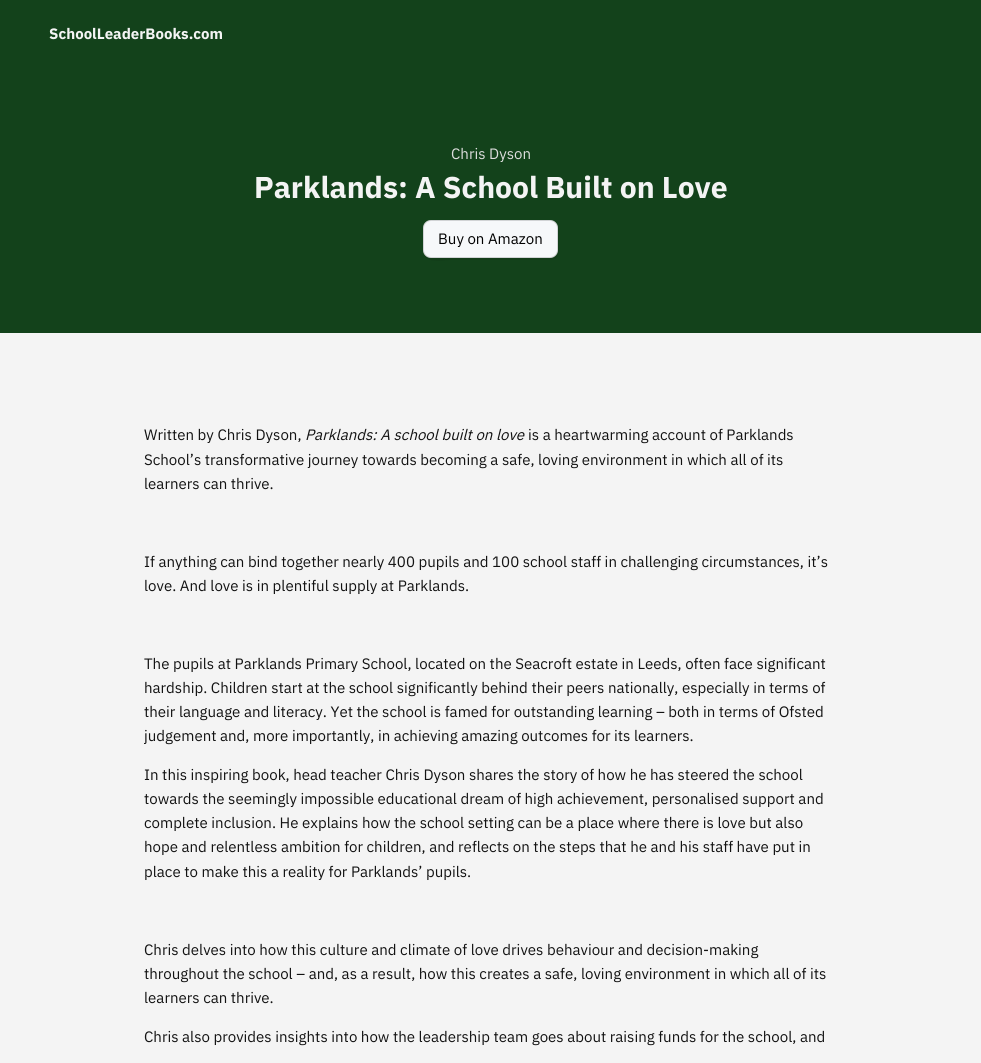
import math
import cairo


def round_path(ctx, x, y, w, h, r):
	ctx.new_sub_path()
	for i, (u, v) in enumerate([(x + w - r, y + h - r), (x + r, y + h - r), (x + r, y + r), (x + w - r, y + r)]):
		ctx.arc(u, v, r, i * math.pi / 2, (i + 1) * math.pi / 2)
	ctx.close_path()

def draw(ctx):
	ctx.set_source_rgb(0.957, 0.957, 0.957)
	ctx.paint()
	ctx.set_source_rgb(0.078, 0.259, 0.106)
	ctx.rectangle(0, 0, 981, 333)
	ctx.fill()
	ctx.select_font_face('IBM Plex Sans', cairo.FONT_SLANT_NORMAL, cairo.FONT_WEIGHT_BOLD)
	ctx.set_font_size(15.05)
	ctx.set_source_rgb(0.957, 0.957, 0.957)
	ctx.move_to(49, 39)
	ctx.show_text('SchoolLeaderBooks.com')
	ctx.select_font_face('IBM Plex Sans')
	ctx.set_source_rgb(0.871, 0.871, 0.871)
	ctx.move_to(451, 159)
	ctx.show_text('Chris Dyson')
	ctx.select_font_face('IBM Plex Sans', cairo.FONT_SLANT_NORMAL, cairo.FONT_WEIGHT_BOLD)
	ctx.set_font_size(30.1)
	ctx.set_source_rgb(0.957, 0.957, 0.957)
	ctx.move_to(254, 198)
	ctx.show_text('Parklands: A School Built on Love')
	ctx.set_source_rgb(0.071, 0.239, 0.098)
	ctx.new_path()
	ctx.move_to(423, 250)
	ctx.curve_to(423, 265, 442, 260, 451, 260)
	ctx.line_to(551, 260)
	ctx.curve_to(561, 260, 559, 247, 559, 240)
	ctx.curve_to(559, 236, 561, 228, 557, 224)
	ctx.curve_to(558, 225, 558, 226, 558, 228)
	ctx.line_to(558, 250)
	ctx.curve_to(558, 255, 555, 258, 550, 258)
	ctx.line_to(431, 258)
	ctx.curve_to(426, 258, 423, 255, 423, 250)
	ctx.close_path()
	ctx.fill()
	ctx.set_source_rgb(0.961, 0.969, 0.98)
	round_path(ctx, 423, 220, 135, 38, 8)
	ctx.fill()
	round_path(ctx, 423.5, 220.5, 134, 37, 7.5)
	ctx.set_source_rgba(0, 0, 0, 0.15)
	ctx.set_line_width(1)
	ctx.stroke()
	ctx.select_font_face('IBM Plex Sans')
	ctx.set_font_size(15.05)
	ctx.set_source_rgb(0, 0, 0)
	ctx.move_to(438, 244)
	ctx.show_text('Buy on Amazon')
	ctx.set_source_rgb(0.071, 0.071, 0.071)
	ctx.move_to(144, 440)
	ctx.show_text('Written by Chris Dyson,')
	ctx.select_font_face('IBM Plex Sans', cairo.FONT_SLANT_ITALIC)
	ctx.move_to(305, 440)
	ctx.show_text('Parklands: A school built on love')
	ctx.select_font_face('IBM Plex Sans')
	for x, y, s in [
		(528, 440, 'is a heartwarming account of Parklands'),
		(144, 465, 'School’s transformative journey towards becoming a safe, loving environment in which all of its'),
		(144, 489, 'learners can thrive.'),
		(144, 567, 'If anything can bind together nearly 400 pupils and 100 school staff in challenging circumstances, it’s'),
		(144, 591, 'love. And love is in plentiful supply at Parklands.'),
		(144, 669, 'The pupils at Parklands Primary School, located on the Seacroft estate in Leeds, often face significant'),
		(144, 693, 'hardship. Children start at the school significantly behind their peers nationally, especially in terms of'),
		(144, 717, 'their language and literacy. Yet the school is famed for outstanding learning – both in terms of Ofsted'),
		(144, 741, 'judgement and, more importantly, in achieving amazing outcomes for its learners.'),
		(144, 780, 'In this inspiring book, head teacher Chris Dyson shares the story of how he has steered the school'),
		(144, 804, 'towards the seemingly impossible educational dream of high achievement, personalised support and'),
		(144, 828, 'complete inclusion. He explains how the school setting can be a place where there is love but also'),
		(144, 852, 'hope and relentless ambition for children, and reflects on the steps that he and his staff have put in'),
		(144, 877, 'place to make this a reality for Parklands’ pupils.'),
		(144, 955, 'Chris delves into how this culture and climate of love drives behaviour and decision-making'),
		(144, 979, 'throughout the school – and, as a result, how this creates a safe, loving environment in which all of its'),
		(144, 1003, 'learners can thrive.'),
		(144, 1042, 'Chris also provides insights into how the leadership team goes about raising funds for the school, and'),
	]:
		ctx.move_to(x, y)
		ctx.show_text(s)


surface = cairo.ImageSurface(cairo.FORMAT_RGB24, 981, 1063)
ctx = cairo.Context(surface)
options = cairo.FontOptions()
options.set_hint_metrics(cairo.HINT_METRICS_OFF)
options.set_hint_style(cairo.HINT_STYLE_NONE)
ctx.set_font_options(options)
ctx.set_miter_limit(4)
draw(ctx)
surface.write_to_png('image.png')
